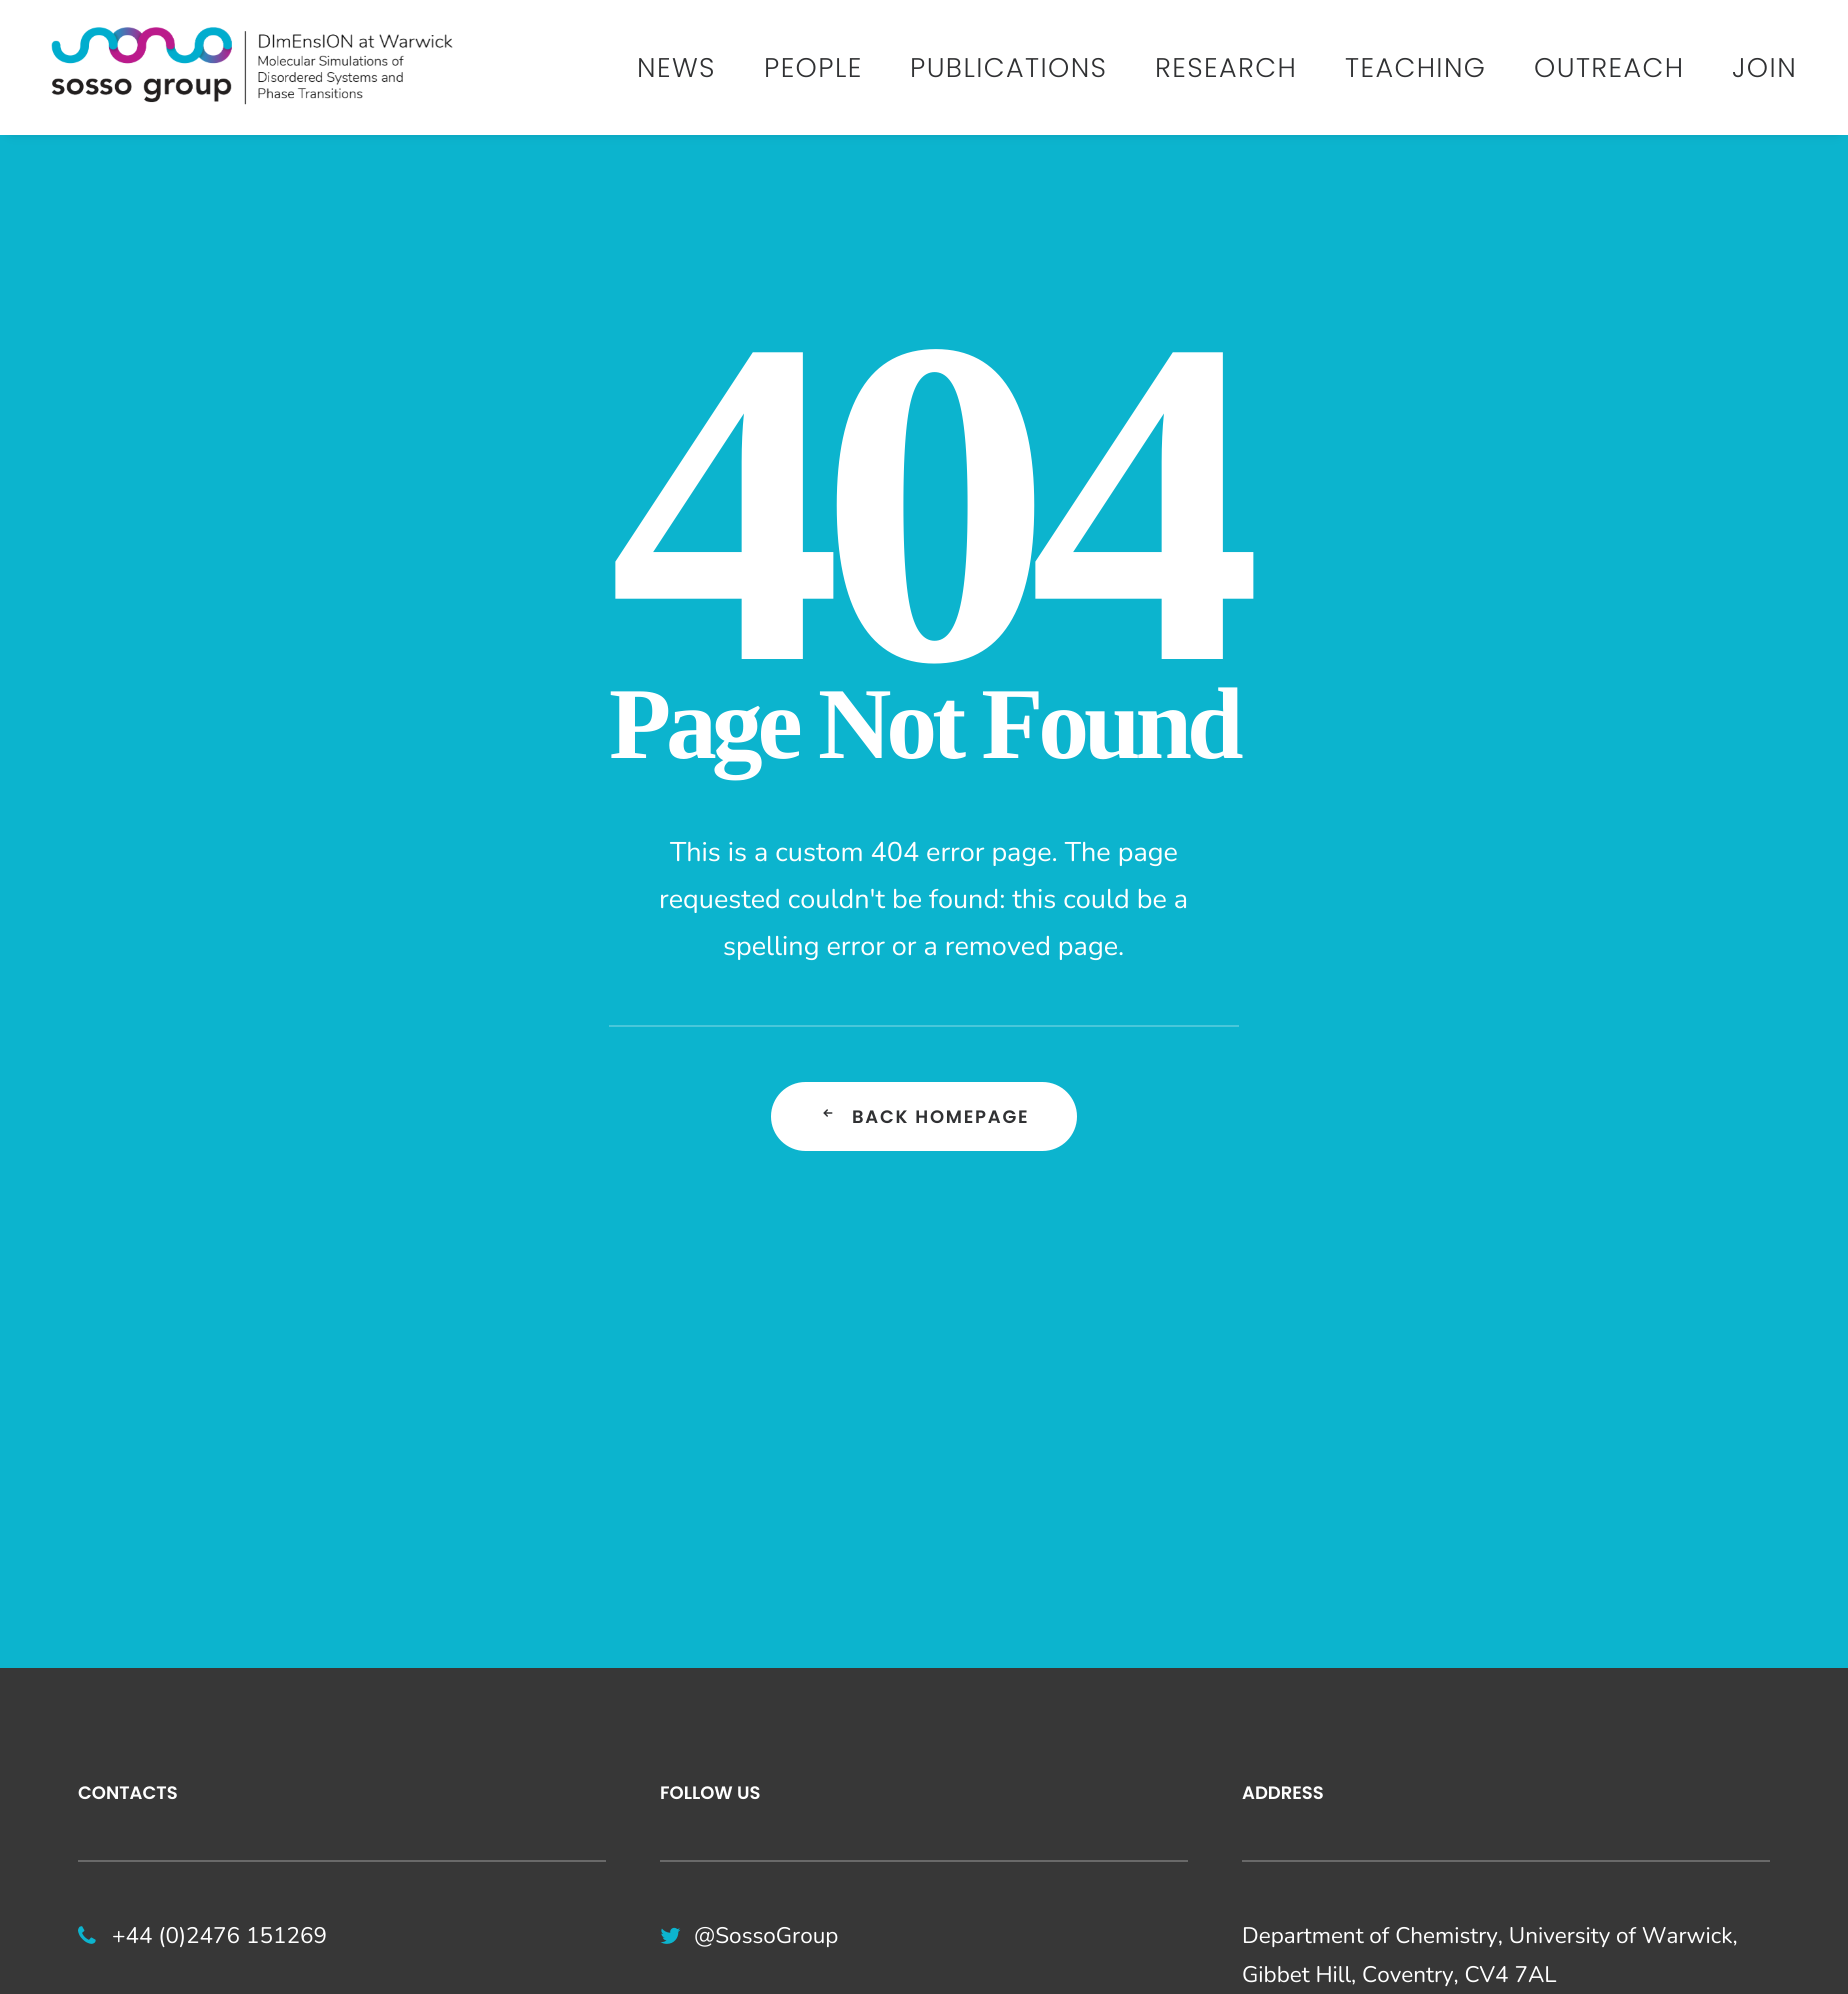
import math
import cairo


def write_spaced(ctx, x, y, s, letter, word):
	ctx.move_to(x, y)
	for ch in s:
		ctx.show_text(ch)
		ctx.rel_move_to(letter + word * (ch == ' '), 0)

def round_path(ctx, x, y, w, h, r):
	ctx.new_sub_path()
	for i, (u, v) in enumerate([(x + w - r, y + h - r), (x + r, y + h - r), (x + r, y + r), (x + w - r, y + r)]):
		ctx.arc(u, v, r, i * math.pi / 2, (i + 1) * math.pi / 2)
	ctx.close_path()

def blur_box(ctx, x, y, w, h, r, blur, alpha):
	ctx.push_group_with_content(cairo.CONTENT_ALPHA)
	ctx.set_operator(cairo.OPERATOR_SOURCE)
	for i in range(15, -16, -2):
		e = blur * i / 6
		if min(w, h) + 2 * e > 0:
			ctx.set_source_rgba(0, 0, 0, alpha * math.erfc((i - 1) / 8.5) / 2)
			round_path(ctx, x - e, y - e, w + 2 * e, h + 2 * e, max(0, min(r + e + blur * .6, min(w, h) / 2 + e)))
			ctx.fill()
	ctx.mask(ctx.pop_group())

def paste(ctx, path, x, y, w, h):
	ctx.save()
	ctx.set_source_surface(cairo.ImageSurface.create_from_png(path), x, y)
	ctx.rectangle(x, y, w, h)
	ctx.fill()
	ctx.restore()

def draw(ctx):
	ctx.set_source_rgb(0.047, 0.706, 0.808)
	ctx.paint()
	ctx.set_source_rgb(0, 0, 0)
	blur_box(ctx, 12, 21, 1824, 105, 0, 7.5, 0.6)
	ctx.set_source_rgb(1, 1, 1)
	ctx.rectangle(0, 0, 1848, 135)
	ctx.fill()
	paste(ctx, 'media/1.png', 51, 27, 402, 78)
	ctx.select_font_face('Poppins Light')
	ctx.set_font_size(27)
	ctx.set_source_rgb(0.188, 0.192, 0.2)
	for x, y, s in [
		(637, 77, 'NEWS'),
		(764, 77, 'PEOPLE'),
		(910, 77, 'PUBLICATIONS'),
		(1155, 77, 'RESEARCH'),
		(1345, 77, 'TEACHING'),
		(1534, 77, 'OUTREACH'),
		(1732, 77, 'JOIN'),
	]:
		write_spaced(ctx, x, y, s, 1.4, 0)
	ctx.select_font_face('Liberation Serif', cairo.FONT_SLANT_NORMAL, cairo.FONT_WEIGHT_BOLD)
	ctx.set_font_size(466)
	ctx.set_source_rgb(1, 1, 1)
	write_spaced(ctx, 609, 659, '404', -23, 0)
	ctx.set_font_size(101.75)
	write_spaced(ctx, 609, 758, 'Page Not Found', -5.1, 0)
	ctx.select_font_face('Nunito')
	ctx.set_font_size(27)
	for x, y, s in [
		(670, 861, 'This is a custom 404 error page. The page'),
		(659, 908, 'requested couldn\'t be found: this could be a'),
		(723, 955, 'spelling error or a removed page.'),
	]:
		ctx.move_to(x, y)
		ctx.show_text(s)
	ctx.set_source_rgb(0.286, 0.78, 0.855)
	ctx.rectangle(609, 1025, 630, 2)
	ctx.fill()
	ctx.set_source_rgb(1, 1, 1)
	round_path(ctx, 772, 1083, 304, 67, 33.5)
	ctx.fill_preserve()
	ctx.stroke()
	paste(ctx, 'media/2.png', 823, 1109, 10, 8)
	ctx.select_font_face('Poppins SemiBold')
	ctx.set_font_size(18)
	ctx.set_source_rgb(0.188, 0.192, 0.2)
	write_spaced(ctx, 852, 1123, 'BACK HOMEPAGE', 1.75, 0)
	ctx.set_source_rgb(0.216, 0.216, 0.216)
	ctx.rectangle(0, 1668, 1848, 326)
	ctx.fill()
	ctx.set_source_rgb(1, 1, 1)
	ctx.move_to(78, 1799)
	ctx.show_text('CONTACTS')
	ctx.set_source_rgb(0.412, 0.412, 0.412)
	ctx.rectangle(78, 1860, 528, 2)
	ctx.fill()
	paste(ctx, 'media/3.png', 78, 1926, 18, 18)
	ctx.select_font_face('Nunito')
	ctx.set_font_size(22.5)
	ctx.set_source_rgb(1, 1, 1)
	ctx.move_to(112, 1943)
	ctx.show_text('+44 (0)2476 151269')
	ctx.select_font_face('Poppins SemiBold')
	ctx.set_font_size(18)
	ctx.move_to(660, 1799)
	ctx.show_text('FOLLOW US')
	ctx.set_source_rgb(0.412, 0.412, 0.412)
	ctx.rectangle(660, 1860, 528, 2)
	ctx.fill()
	paste(ctx, 'media/4.png', 660, 1927, 21, 17)
	ctx.select_font_face('Nunito')
	ctx.set_font_size(22.5)
	ctx.set_source_rgb(1, 1, 1)
	ctx.move_to(694, 1943)
	ctx.show_text('@SossoGroup')
	ctx.select_font_face('Poppins SemiBold')
	ctx.set_font_size(18)
	ctx.move_to(1242, 1799)
	ctx.show_text('ADDRESS')
	ctx.set_source_rgb(0.412, 0.412, 0.412)
	ctx.rectangle(1242, 1860, 528, 2)
	ctx.fill()
	ctx.select_font_face('Nunito')
	ctx.set_font_size(22.5)
	ctx.set_source_rgb(1, 1, 1)
	ctx.move_to(1242, 1943)
	ctx.show_text('Department of Chemistry, University of Warwick,')
	ctx.move_to(1242, 1982)
	ctx.show_text('Gibbet Hill, Coventry, CV4 7AL')


surface = cairo.ImageSurface(cairo.FORMAT_RGB24, 1848, 1994)
ctx = cairo.Context(surface)
options = cairo.FontOptions()
options.set_hint_metrics(cairo.HINT_METRICS_OFF)
options.set_hint_style(cairo.HINT_STYLE_NONE)
ctx.set_font_options(options)
ctx.set_miter_limit(4)
draw(ctx)
surface.write_to_png('image.png')
